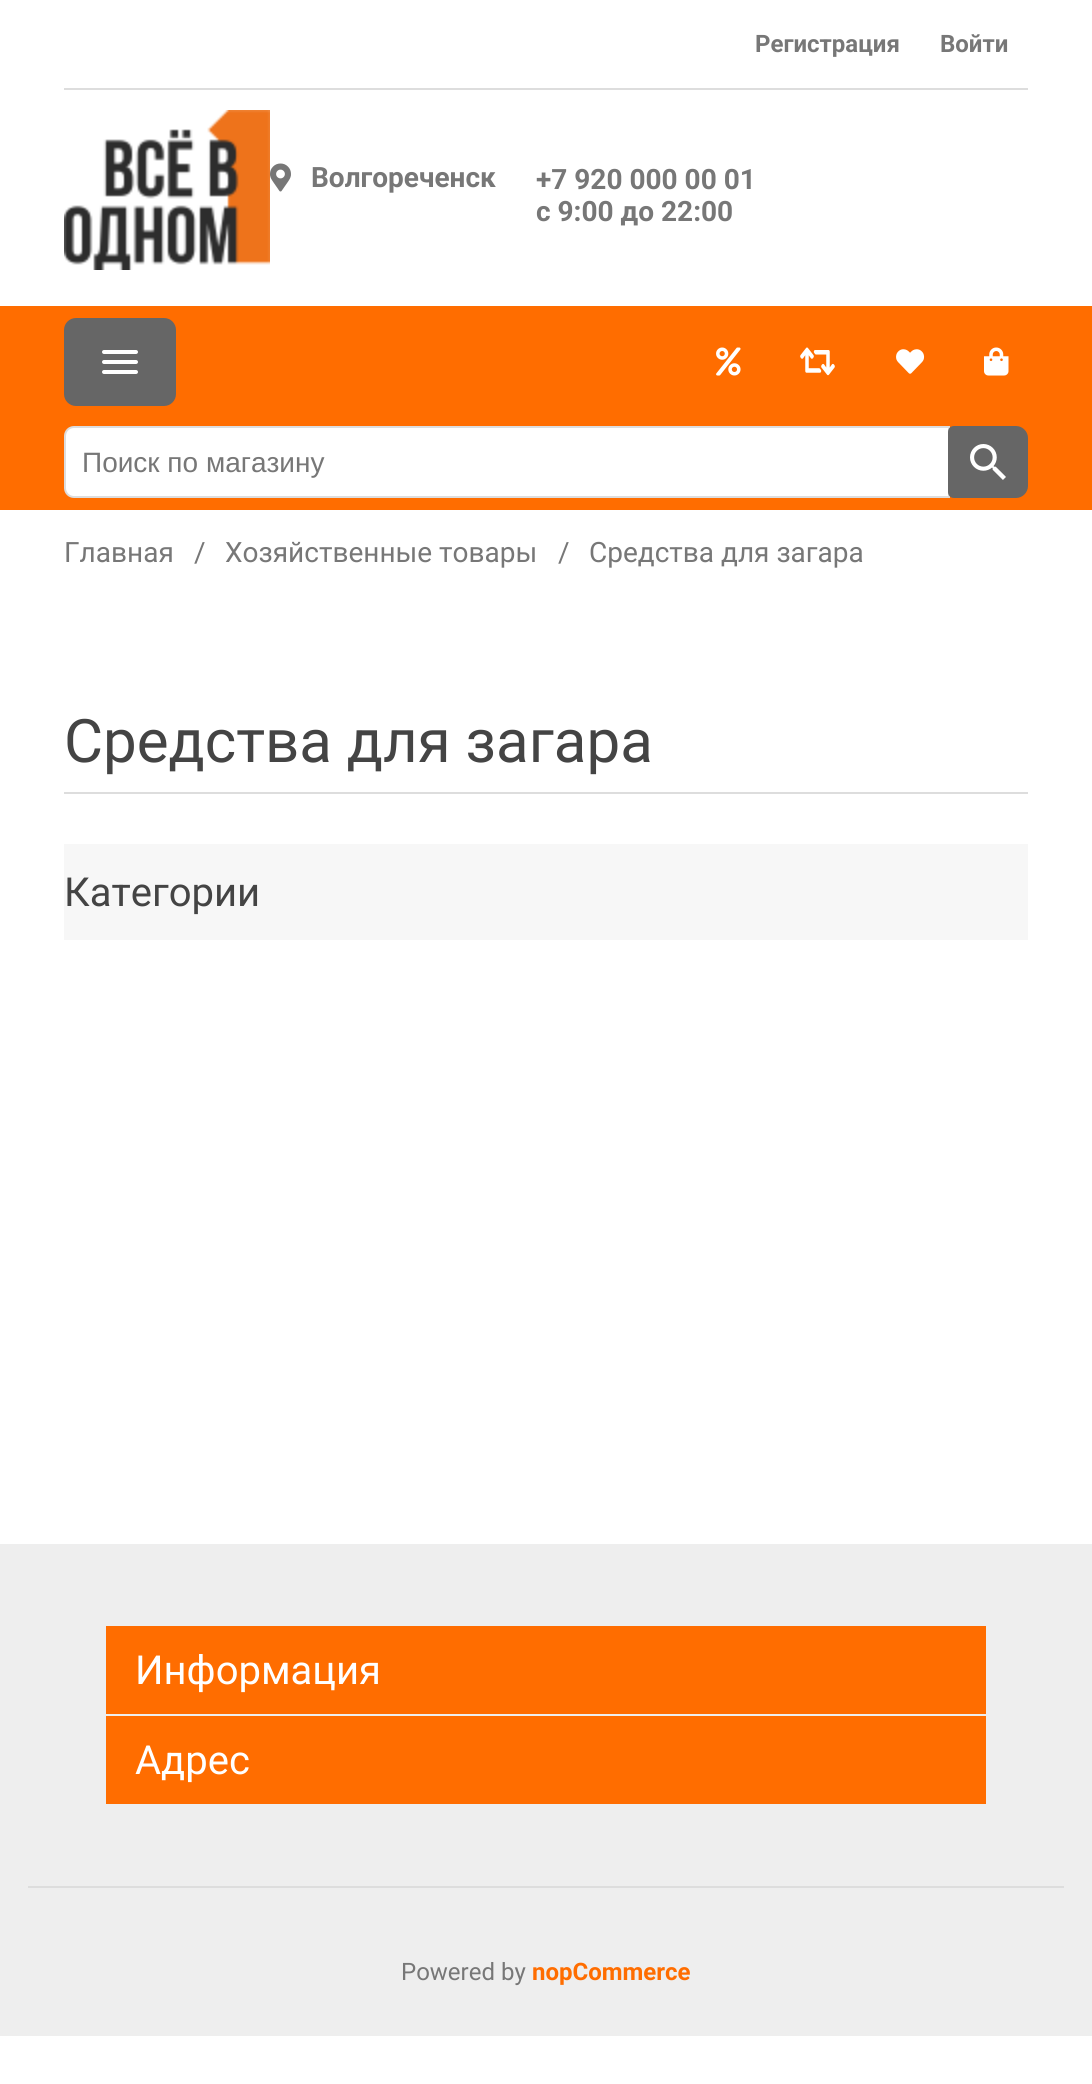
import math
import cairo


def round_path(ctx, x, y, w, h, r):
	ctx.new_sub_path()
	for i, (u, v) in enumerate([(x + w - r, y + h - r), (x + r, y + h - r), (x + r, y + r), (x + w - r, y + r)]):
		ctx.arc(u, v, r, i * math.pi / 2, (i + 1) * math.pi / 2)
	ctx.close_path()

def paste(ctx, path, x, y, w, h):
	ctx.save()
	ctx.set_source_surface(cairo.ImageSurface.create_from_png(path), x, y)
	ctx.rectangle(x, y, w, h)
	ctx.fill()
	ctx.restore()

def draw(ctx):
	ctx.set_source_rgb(1, 1, 1)
	ctx.paint()
	ctx.set_source_rgb(0.867, 0.867, 0.867)
	ctx.rectangle(64, 88, 964, 2)
	ctx.fill()
	ctx.select_font_face('Roboto', cairo.FONT_SLANT_NORMAL, cairo.FONT_WEIGHT_BOLD)
	ctx.set_font_size(24)
	ctx.set_source_rgb(0.467, 0.467, 0.467)
	ctx.move_to(755, 52)
	ctx.show_text('Регистрация')
	ctx.move_to(940, 52)
	ctx.show_text('Войти')
	paste(ctx, 'media/1.png', 64, 110, 206, 160)
	paste(ctx, 'media/2.png', 270, 163, 21, 29)
	ctx.set_font_size(28)
	for x, y, s in [
		(311, 187, 'Волгореченск'),
		(536, 189, '+7 920 000 00 01'),
		(536, 221, 'с 9:00 до 22:00'),
	]:
		ctx.move_to(x, y)
		ctx.show_text(s)
	ctx.set_source_rgb(1, 0.427, 0)
	ctx.rectangle(0, 306, 1092, 204)
	ctx.fill()
	ctx.set_source_rgb(0.4, 0.4, 0.4)
	round_path(ctx, 64, 318, 112, 88, 12)
	ctx.fill()
	paste(ctx, 'media/3.png', 102, 350, 36, 24)
	paste(ctx, 'media/4.png', 716, 347, 25, 29)
	paste(ctx, 'media/5.png', 800, 347, 35, 29)
	paste(ctx, 'media/6.png', 896, 349, 29, 25)
	paste(ctx, 'media/7.png', 984, 347, 25, 29)
	ctx.set_source_rgb(1, 1, 1)
	ctx.new_path()
	ctx.move_to(74, 427)
	ctx.line_to(949, 427)
	ctx.line_to(949, 497)
	ctx.line_to(74, 497)
	ctx.curve_to(69, 497, 65, 493, 65, 488)
	ctx.line_to(65, 436)
	ctx.curve_to(65, 431, 69, 427, 74, 427)
	ctx.close_path()
	ctx.fill_preserve()
	ctx.set_source_rgb(0.867, 0.867, 0.867)
	ctx.stroke()
	ctx.select_font_face('Liberation Sans')
	ctx.set_source_rgb(0.467, 0.467, 0.467)
	ctx.move_to(82, 472)
	ctx.show_text('Поиск по магазину')
	ctx.set_source_rgb(0.4, 0.4, 0.4)
	ctx.new_path()
	ctx.move_to(954, 426)
	ctx.line_to(1016, 426)
	ctx.curve_to(1022.5, 426, 1028, 431.5, 1028, 438)
	ctx.line_to(1028, 486)
	ctx.curve_to(1028, 492.5, 1022.5, 498, 1016, 498)
	ctx.line_to(954, 498)
	ctx.curve_to(950.5, 498, 948, 495.5, 948, 492)
	ctx.line_to(948, 432)
	ctx.curve_to(948, 428.5, 950.5, 426, 954, 426)
	ctx.close_path()
	ctx.fill()
	paste(ctx, 'media/8.png', 970, 444, 36, 36)
	ctx.select_font_face('Roboto')
	ctx.set_source_rgb(0.467, 0.467, 0.467)
	for x, y, s in [
		(64, 562, 'Главная'),
		(194, 562, '/'),
		(225, 562, 'Хозяйственные товары'),
		(558, 562, '/'),
		(589, 562, 'Средства для загара'),
	]:
		ctx.move_to(x, y)
		ctx.show_text(s)
	ctx.set_source_rgb(0.867, 0.867, 0.867)
	ctx.rectangle(64, 792, 964, 2)
	ctx.fill()
	ctx.set_font_size(60)
	ctx.set_source_rgb(0.267, 0.267, 0.267)
	ctx.move_to(64, 762)
	ctx.show_text('Средства для загара')
	ctx.set_source_rgb(0.965, 0.965, 0.965)
	ctx.rectangle(64, 844, 964, 96)
	ctx.fill()
	ctx.set_font_size(40)
	ctx.set_source_rgb(0.267, 0.267, 0.267)
	ctx.move_to(64, 906)
	ctx.show_text('Категории')
	ctx.set_source_rgb(0.933, 0.933, 0.933)
	ctx.rectangle(0, 1544, 1092, 492)
	ctx.fill()
	ctx.set_source_rgb(0.867, 0.867, 0.867)
	ctx.rectangle(28, 1886, 1036, 2)
	ctx.fill()
	ctx.set_source_rgb(1, 0.427, 0)
	ctx.rectangle(106, 1626, 880, 88)
	ctx.fill()
	ctx.set_source_rgb(1, 1, 1)
	ctx.move_to(135, 1684)
	ctx.show_text('Информация')
	ctx.set_source_rgb(1, 0.427, 0)
	ctx.rectangle(106, 1716, 880, 88)
	ctx.fill()
	ctx.set_source_rgb(1, 1, 1)
	ctx.move_to(135, 1774)
	ctx.show_text('Адрес')
	ctx.set_font_size(24)
	ctx.set_source_rgb(0.467, 0.467, 0.467)
	ctx.move_to(401, 1980)
	ctx.show_text('Powered by')
	ctx.select_font_face('Roboto', cairo.FONT_SLANT_NORMAL, cairo.FONT_WEIGHT_BOLD)
	ctx.set_source_rgb(1, 0.427, 0)
	ctx.move_to(532, 1980)
	ctx.show_text('nopCommerce')


surface = cairo.ImageSurface(cairo.FORMAT_RGB24, 1092, 2084)
ctx = cairo.Context(surface)
options = cairo.FontOptions()
options.set_hint_metrics(cairo.HINT_METRICS_OFF)
options.set_hint_style(cairo.HINT_STYLE_NONE)
ctx.set_font_options(options)
ctx.set_miter_limit(4)
draw(ctx)
surface.write_to_png('image.png')
